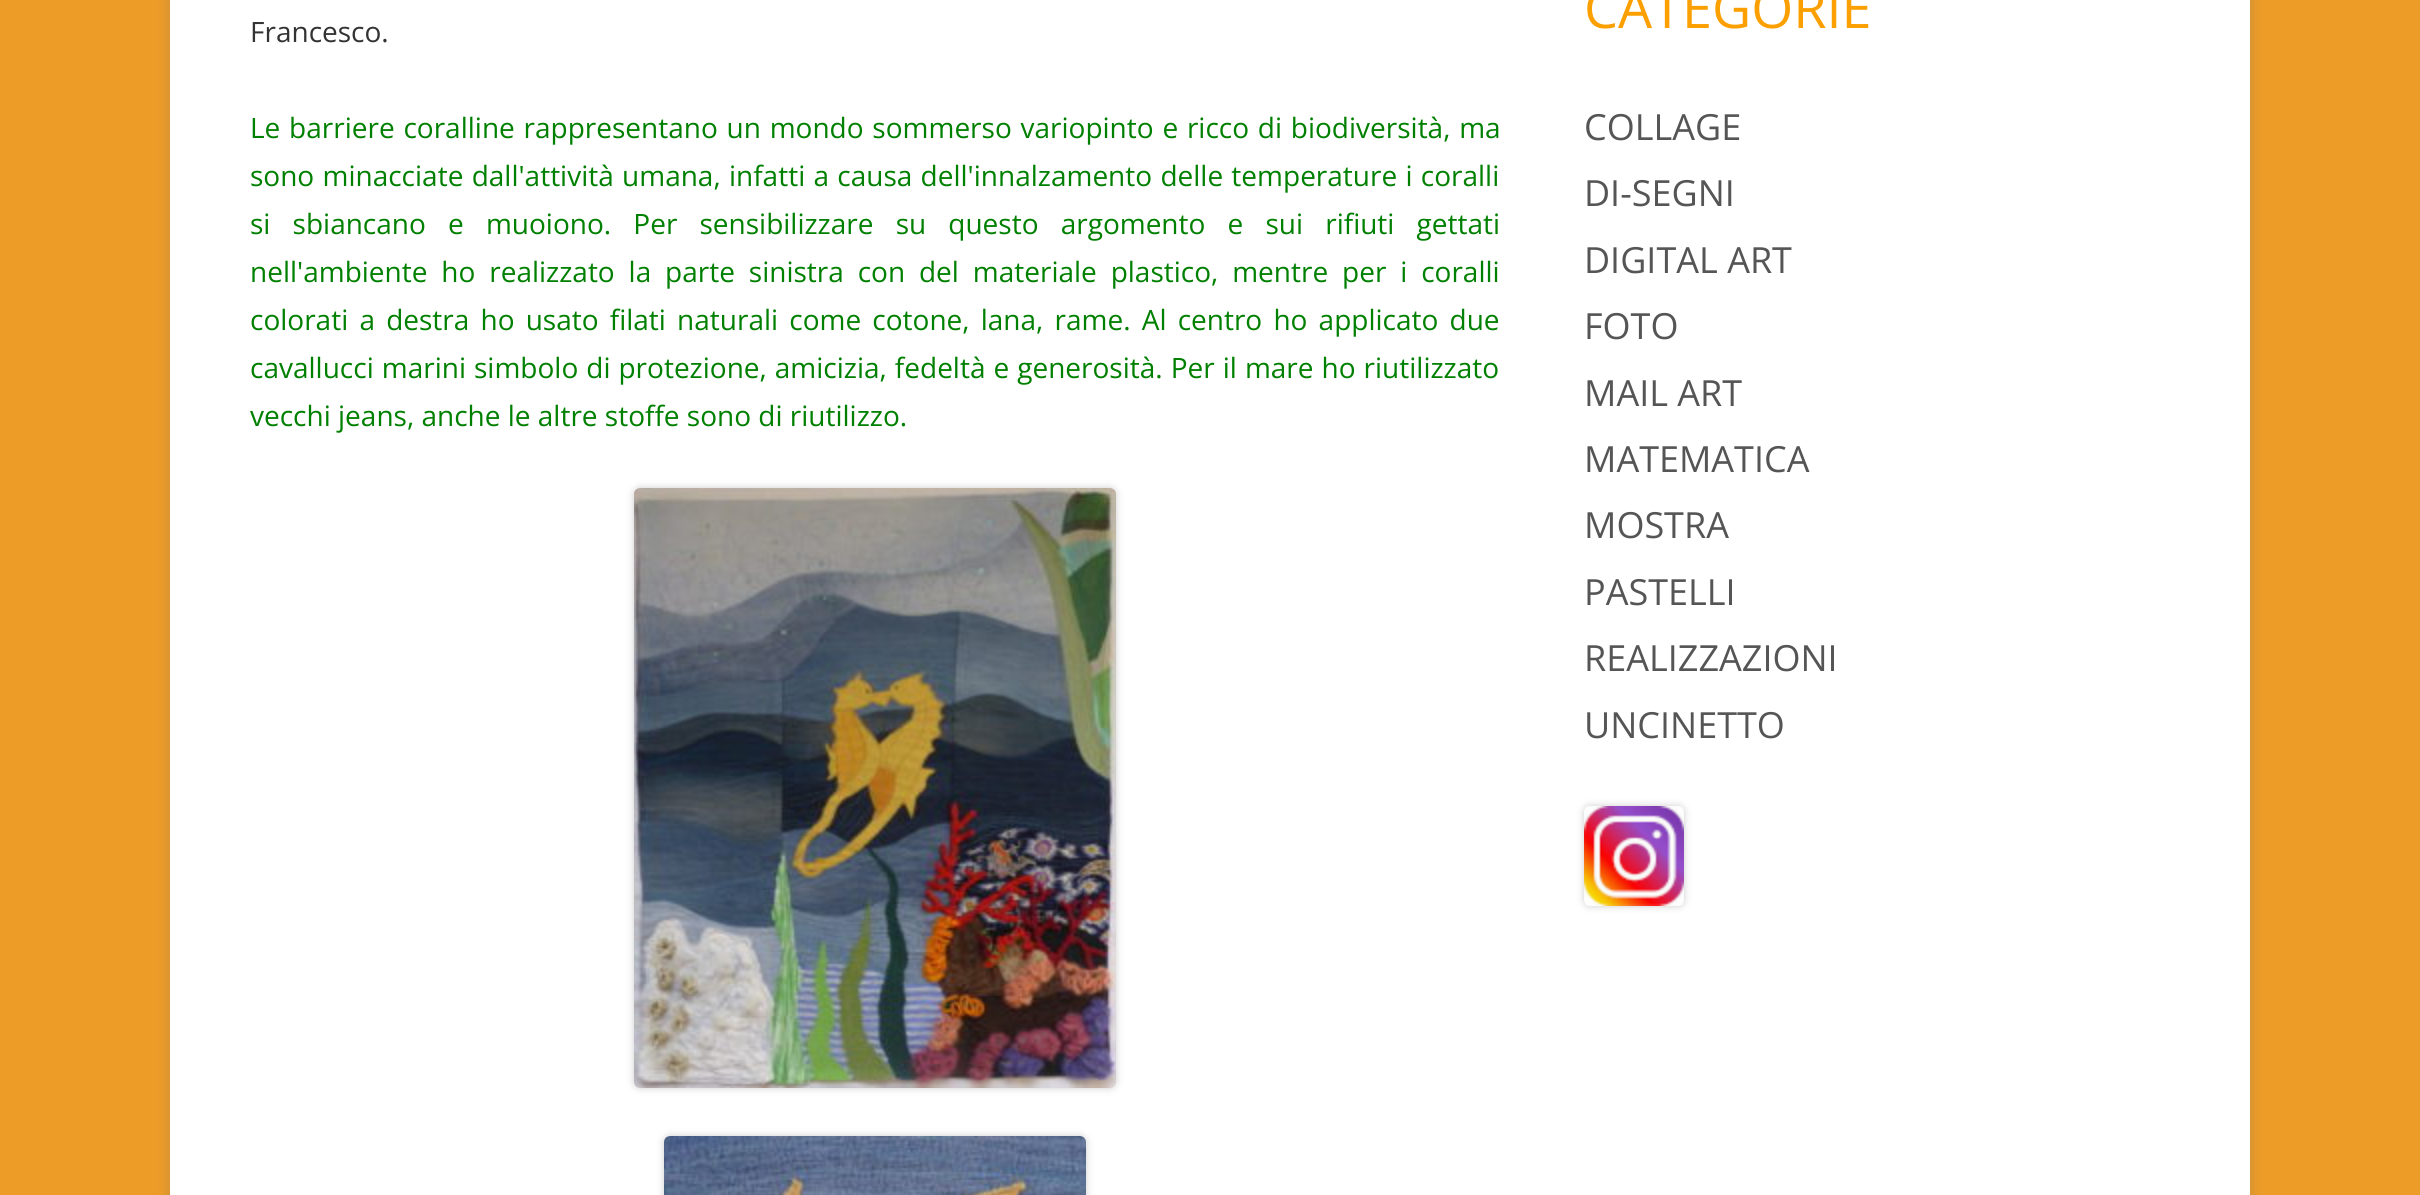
import math
import cairo


def write_spaced(ctx, x, y, s, letter, word):
	ctx.move_to(x, y)
	for ch in s:
		ctx.show_text(ch)
		ctx.rel_move_to(letter + word * (ch == ' '), 0)

def round_path(ctx, x, y, w, h, r):
	ctx.new_sub_path()
	for i, (u, v) in enumerate([(x + w - r, y + h - r), (x + r, y + h - r), (x + r, y + r), (x + w - r, y + r)]):
		ctx.arc(u, v, r, i * math.pi / 2, (i + 1) * math.pi / 2)
	ctx.close_path()

def blur_box(ctx, x, y, w, h, r, blur, alpha):
	ctx.push_group_with_content(cairo.CONTENT_ALPHA)
	ctx.set_operator(cairo.OPERATOR_SOURCE)
	for i in range(15, -16, -2):
		e = blur * i / 6
		if min(w, h) + 2 * e > 0:
			ctx.set_source_rgba(0, 0, 0, alpha * math.erfc((i - 1) / 8.5) / 2)
			round_path(ctx, x - e, y - e, w + 2 * e, h + 2 * e, max(0, min(r + e + blur * .6, min(w, h) / 2 + e)))
			ctx.fill()
	ctx.mask(ctx.pop_group())

def paste(ctx, path, x, y, w, h):
	ctx.save()
	ctx.set_source_surface(cairo.ImageSurface.create_from_png(path), x, y)
	ctx.rectangle(x, y, w, h)
	ctx.fill()
	ctx.restore()

def draw(ctx):
	ctx.set_source_rgb(0.929, 0.612, 0.157)
	ctx.paint()
	ctx.set_source_rgb(0.392, 0.392, 0.392)
	blur_box(ctx, 170, -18, 2080, 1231, 0, 6, 0.3)
	ctx.set_source_rgb(1, 1, 1)
	ctx.rectangle(170, 0, 2080, 1195)
	ctx.fill()
	ctx.select_font_face('Open Sans')
	ctx.set_font_size(28)
	ctx.set_source_rgb(0.2, 0.2, 0.2)
	ctx.move_to(250, 42)
	ctx.show_text('Francesco.')
	ctx.set_source_rgb(0, 0.502, 0)
	write_spaced(ctx, 250, 138, 'Le barriere coralline rappresentano un mondo sommerso variopinto e ricco di biodiversità, ma', 0, 1.5)
	write_spaced(ctx, 250, 186, 'sono minacciate dall\'attività umana, infatti a causa dell\'innalzamento delle temperature i coralli', 0, 1)
	write_spaced(ctx, 250, 234, 'si sbiancano e muoiono. Per sensibilizzare su questo argomento e sui rifiuti gettati', 0, 14.9)
	write_spaced(ctx, 250, 282, 'nell\'ambiente ho realizzato la parte sinistra con del materiale plastico, mentre per i coralli', 0, 6.6)
	write_spaced(ctx, 250, 330, 'colorati a destra ho usato filati naturali come cotone, lana, rame. Al centro ho applicato due', 0, 3.9)
	write_spaced(ctx, 250, 378, 'cavallucci marini simbolo di protezione, amicizia, fedeltà e generosità. Per il mare ho riutilizzato', 0, 0.75)
	ctx.move_to(250, 426)
	ctx.show_text('vecchi jeans, anche le altre stoffe sono di riutilizzo.')
	ctx.set_source_rgb(0, 0, 0)
	blur_box(ctx, 634, 488, 482, 600, 6, 4, 0.2)
	paste(ctx, 'media/1.png', 634, 488, 482, 600)
	blur_box(ctx, 664, 1136, 422, 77, 6, 4, 0.2)
	paste(ctx, 'media/2.png', 664, 1136, 422, 59)
	ctx.set_font_size(54)
	ctx.set_source_rgb(0.988, 0.624, 0)
	ctx.move_to(1584, 28)
	ctx.show_text('CATEGORIE')
	ctx.set_font_size(36)
	ctx.set_source_rgb(0.333, 0.333, 0.333)
	for x, y, s in [
		(1584, 140, 'COLLAGE'),
		(1584, 206, 'DI-SEGNI'),
		(1584, 273, 'DIGITAL ART'),
		(1584, 339, 'FOTO'),
		(1584, 406, 'MAIL ART'),
		(1584, 472, 'MATEMATICA'),
		(1584, 538, 'MOSTRA'),
		(1584, 605, 'PASTELLI'),
		(1584, 671, 'REALIZZAZIONI'),
		(1584, 738, 'UNCINETTO'),
	]:
		ctx.move_to(x, y)
		ctx.show_text(s)
	ctx.set_source_rgb(0, 0, 0)
	blur_box(ctx, 1584, 806, 100, 100, 6, 4, 0.2)
	paste(ctx, 'media/3.png', 1584, 806, 100, 100)


surface = cairo.ImageSurface(cairo.FORMAT_RGB24, 2420, 1195)
ctx = cairo.Context(surface)
options = cairo.FontOptions()
options.set_hint_metrics(cairo.HINT_METRICS_OFF)
options.set_hint_style(cairo.HINT_STYLE_NONE)
ctx.set_font_options(options)
ctx.set_miter_limit(4)
draw(ctx)
surface.write_to_png('image.png')
